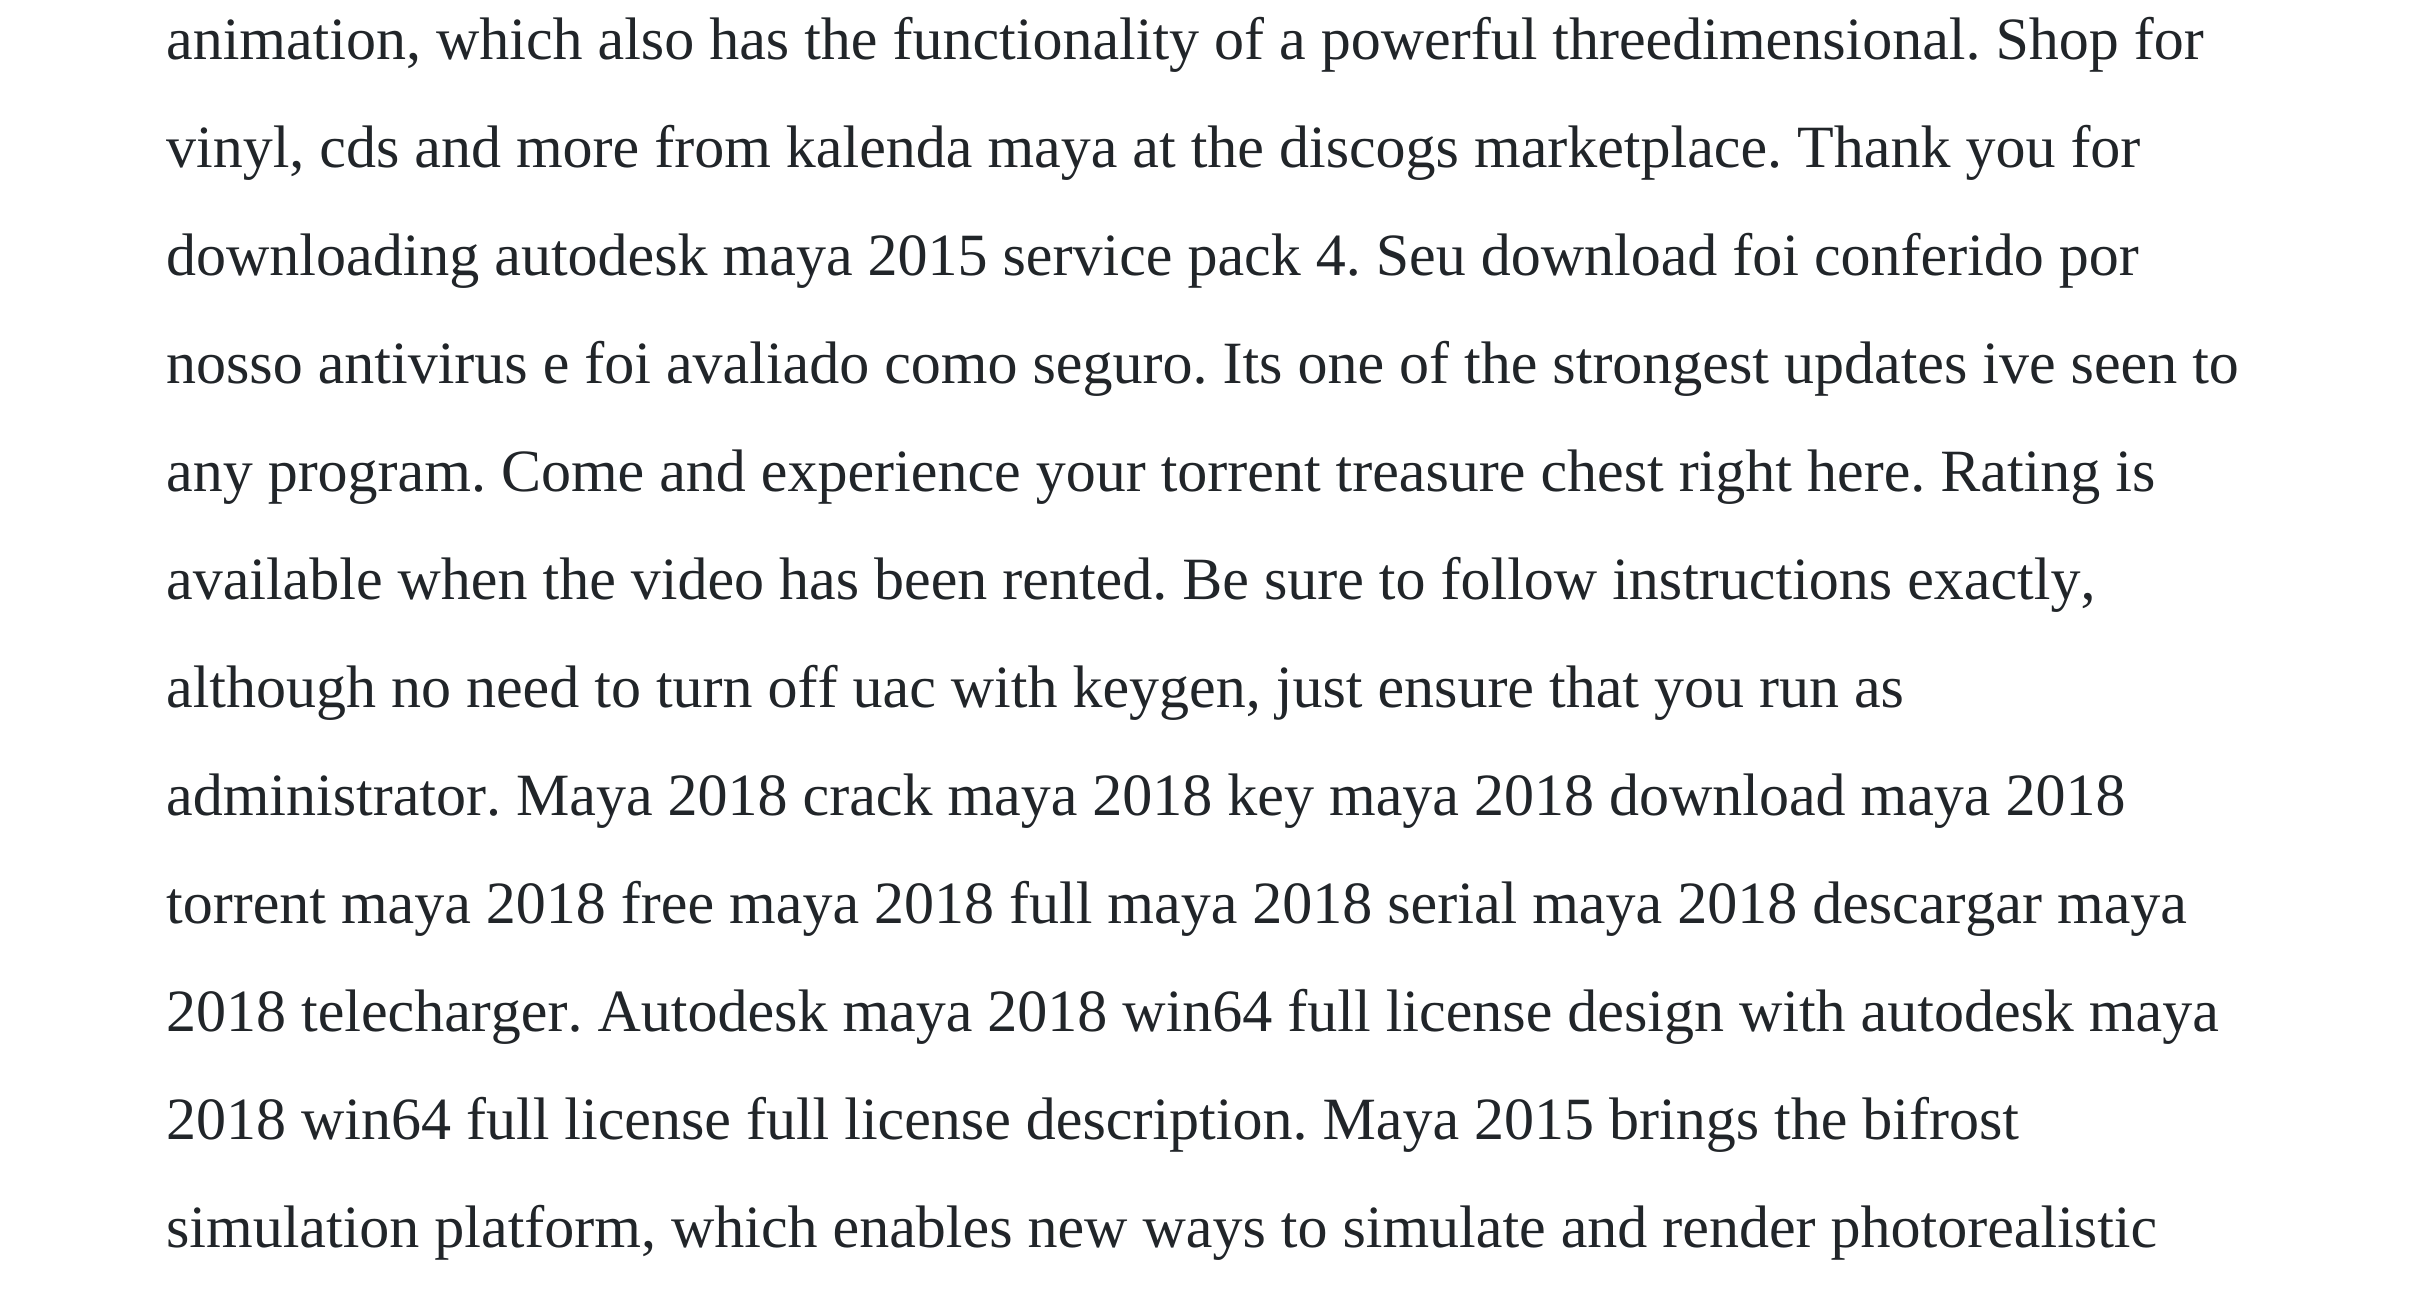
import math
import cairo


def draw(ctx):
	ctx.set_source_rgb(1, 1, 1)
	ctx.paint()
	ctx.select_font_face('Liberation Serif')
	ctx.set_font_size(60)
	ctx.set_source_rgb(0.129, 0.145, 0.161)
	for x, y, s in [
		(166, 59, 'animation, which also has the functionality of a powerful threedimensional. Shop for'),
		(166, 167, 'vinyl, cds and more from kalenda maya at the discogs marketplace. Thank you for'),
		(166, 275, 'downloading autodesk maya 2015 service pack 4. Seu download foi conferido por'),
		(166, 383, 'nosso antivirus e foi avaliado como seguro. Its one of the strongest updates ive seen to'),
		(166, 491, 'any program. Come and experience your torrent treasure chest right here. Rating is'),
		(166, 599, 'available when the video has been rented. Be sure to follow instructions exactly,'),
		(166, 707, 'although no need to turn off uac with keygen, just ensure that you run as'),
		(166, 815, 'administrator. Maya 2018 crack maya 2018 key maya 2018 download maya 2018'),
		(166, 923, 'torrent maya 2018 free maya 2018 full maya 2018 serial maya 2018 descargar maya'),
		(166, 1031, '2018 telecharger. Autodesk maya 2018 win64 full license design with autodesk maya'),
		(166, 1139, '2018 win64 full license full license description. Maya 2015 brings the bifrost'),
		(166, 1247, 'simulation platform, which enables new ways to simulate and render photorealistic'),
	]:
		ctx.move_to(x, y)
		ctx.show_text(s)


surface = cairo.ImageSurface(cairo.FORMAT_RGB24, 2416, 1316)
ctx = cairo.Context(surface)
options = cairo.FontOptions()
options.set_hint_metrics(cairo.HINT_METRICS_OFF)
options.set_hint_style(cairo.HINT_STYLE_NONE)
ctx.set_font_options(options)
ctx.set_miter_limit(4)
draw(ctx)
surface.write_to_png('image.png')
